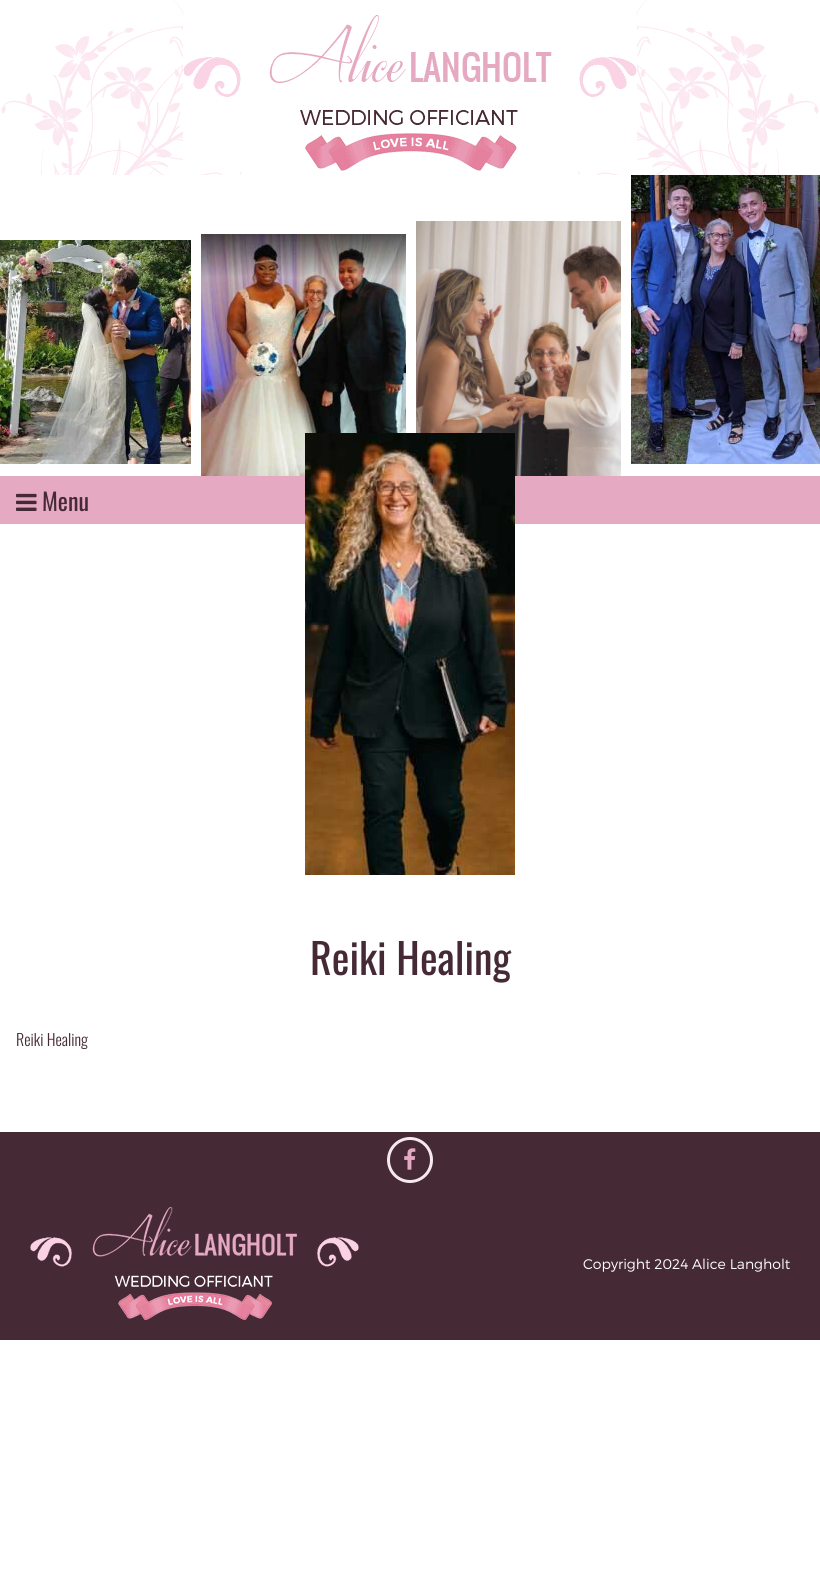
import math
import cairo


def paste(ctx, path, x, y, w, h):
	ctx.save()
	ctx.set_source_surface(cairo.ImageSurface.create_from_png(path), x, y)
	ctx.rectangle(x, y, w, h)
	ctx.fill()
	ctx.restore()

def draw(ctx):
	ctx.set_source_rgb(1, 1, 1)
	ctx.paint()
	paste(ctx, 'media/1.png', 1, 0, 818, 175)
	paste(ctx, 'media/2.png', 183, 15, 454, 156)
	paste(ctx, 'media/3.png', 0, 240, 191, 224)
	paste(ctx, 'media/4.png', 201, 234, 205, 242)
	paste(ctx, 'media/5.png', 416, 221, 205, 255)
	paste(ctx, 'media/6.png', 631, 175, 189, 289)
	ctx.set_source_rgb(0.898, 0.663, 0.761)
	ctx.rectangle(0, 476, 820, 48)
	ctx.fill()
	paste(ctx, 'media/7.png', 16, 493, 21, 18)
	ctx.select_font_face('Oswald')
	ctx.set_font_size(24)
	ctx.set_source_rgb(0.271, 0.165, 0.208)
	ctx.move_to(42, 511)
	ctx.show_text('Menu')
	paste(ctx, 'media/8.png', 305, 433, 210, 442)
	ctx.set_font_size(42)
	ctx.move_to(310, 975)
	ctx.show_text('Reiki Healing')
	ctx.select_font_face('Oswald Light')
	ctx.set_font_size(16)
	ctx.move_to(16, 1046)
	ctx.show_text('Reiki Healing')
	ctx.rectangle(0, 1132, 820, 208)
	ctx.fill()
	ctx.arc(410, 1160, 21.5, 0, 2 * math.pi)
	ctx.set_source_rgb(0.961, 0.91, 0.929)
	ctx.set_line_width(3)
	ctx.stroke()
	paste(ctx, 'media/9.png', 404, 1148, 12, 22)
	paste(ctx, 'media/10.png', 30, 1207, 329, 113)
	ctx.select_font_face('Montserrat Light')
	ctx.set_font_size(14)
	ctx.set_source_rgb(1, 1, 1)
	ctx.move_to(583, 1269)
	ctx.show_text('Copyright 2024 Alice Langholt')


surface = cairo.ImageSurface(cairo.FORMAT_RGB24, 820, 1577)
ctx = cairo.Context(surface)
options = cairo.FontOptions()
options.set_hint_metrics(cairo.HINT_METRICS_OFF)
options.set_hint_style(cairo.HINT_STYLE_NONE)
ctx.set_font_options(options)
ctx.set_miter_limit(4)
draw(ctx)
surface.write_to_png('image.png')
